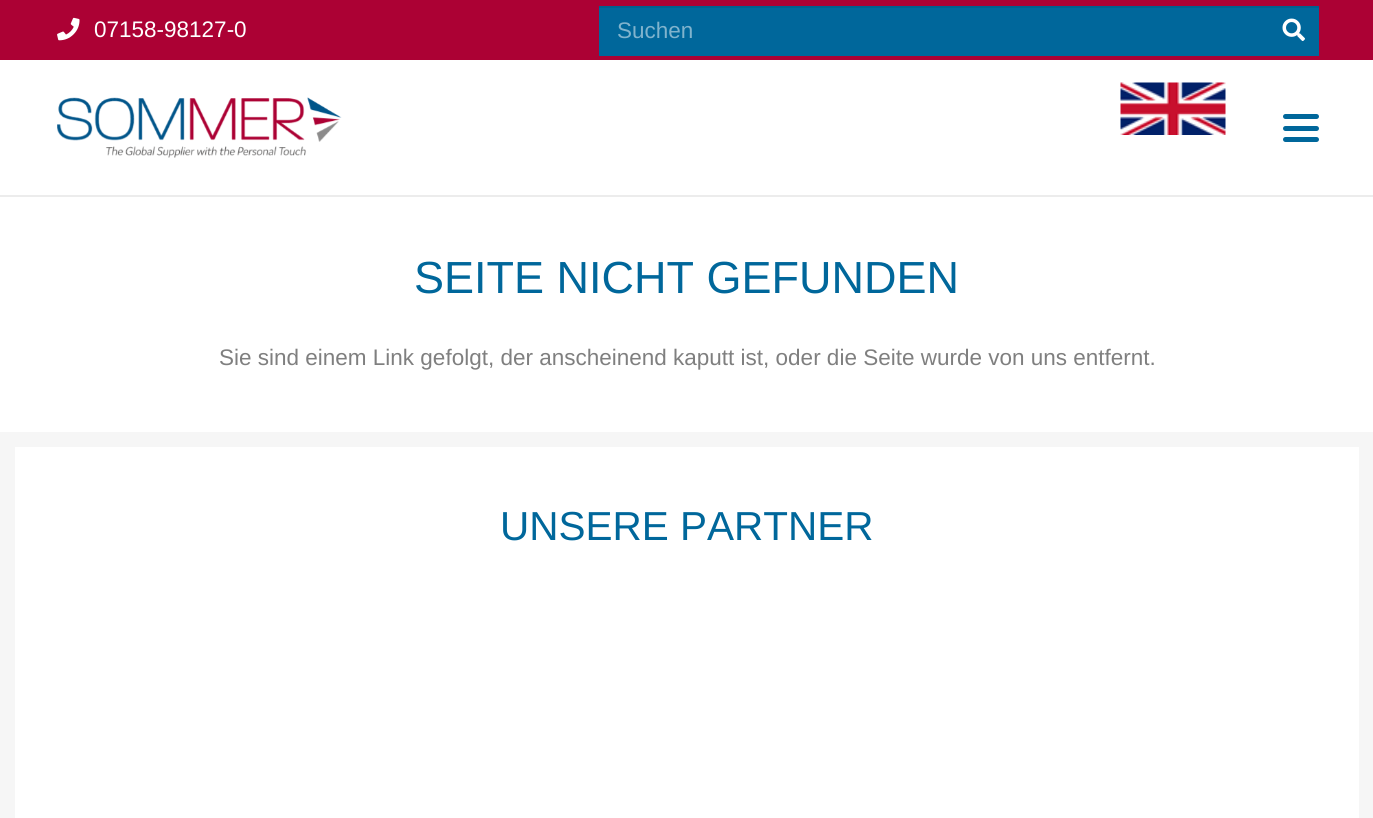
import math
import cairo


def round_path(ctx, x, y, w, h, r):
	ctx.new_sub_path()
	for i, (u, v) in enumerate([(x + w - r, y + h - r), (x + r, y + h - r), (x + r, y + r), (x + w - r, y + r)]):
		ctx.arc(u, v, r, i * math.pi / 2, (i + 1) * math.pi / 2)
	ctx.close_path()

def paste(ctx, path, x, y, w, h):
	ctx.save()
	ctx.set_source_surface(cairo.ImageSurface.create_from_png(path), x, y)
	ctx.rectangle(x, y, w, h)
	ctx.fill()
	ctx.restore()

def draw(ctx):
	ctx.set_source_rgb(1, 1, 1)
	ctx.paint()
	ctx.set_source_rgb(0.675, 0.004, 0.204)
	ctx.rectangle(0, 0, 1373, 60)
	ctx.fill()
	paste(ctx, 'media/1.png', 57, 17, 23, 24)
	ctx.select_font_face('Liberation Sans')
	ctx.set_font_size(22.5)
	ctx.set_source_rgb(1, 1, 1)
	ctx.move_to(94, 37)
	ctx.show_text('07158-98127-0')
	ctx.set_source_rgb(0, 0.404, 0.608)
	ctx.rectangle(599, 8, 720, 48)
	ctx.fill()
	ctx.set_source_rgb(0, 0.373, 0.561)
	ctx.rectangle(599, 6, 720, 2)
	ctx.fill()
	ctx.set_source_rgb(0.502, 0.702, 0.804)
	ctx.move_to(617, 38)
	ctx.show_text('Suchen')
	paste(ctx, 'media/2.png', 1282, 18, 23, 23)
	ctx.set_source_rgb(0.922, 0.922, 0.922)
	ctx.rectangle(0, 195, 1373, 2)
	ctx.fill()
	paste(ctx, 'media/3.png', 57, 97, 285, 61)
	paste(ctx, 'media/4.png', 1120, 82, 106, 53)
	ctx.set_source_rgb(0, 0.404, 0.608)
	round_path(ctx, 1283, 126, 36, 5, 2.5)
	ctx.fill()
	round_path(ctx, 1283, 114, 36, 5, 2.5)
	ctx.fill()
	round_path(ctx, 1283, 137, 36, 5, 2.5)
	ctx.fill()
	ctx.set_font_size(45)
	ctx.move_to(414, 293)
	ctx.show_text('SEITE NICHT GEFUNDEN')
	ctx.set_font_size(22.5)
	ctx.set_source_rgb(0.498, 0.498, 0.498)
	ctx.move_to(219, 365)
	ctx.show_text('Sie sind einem Link gefolgt, der anscheinend kaputt ist, oder die Seite wurde von uns entfernt.')
	ctx.set_source_rgb(0.961, 0.961, 0.961)
	ctx.rectangle(15, 432, 1344, 15)
	ctx.rectangle(1359, 432, 14, 386)
	ctx.rectangle(0, 432, 15, 386)
	ctx.fill()
	ctx.set_font_size(40.5)
	ctx.set_source_rgb(0, 0.404, 0.608)
	ctx.move_to(500, 540)
	ctx.show_text('UNSERE PARTNER')


surface = cairo.ImageSurface(cairo.FORMAT_RGB24, 1373, 818)
ctx = cairo.Context(surface)
options = cairo.FontOptions()
options.set_hint_metrics(cairo.HINT_METRICS_OFF)
options.set_hint_style(cairo.HINT_STYLE_NONE)
ctx.set_font_options(options)
ctx.set_miter_limit(4)
draw(ctx)
surface.write_to_png('image.png')
